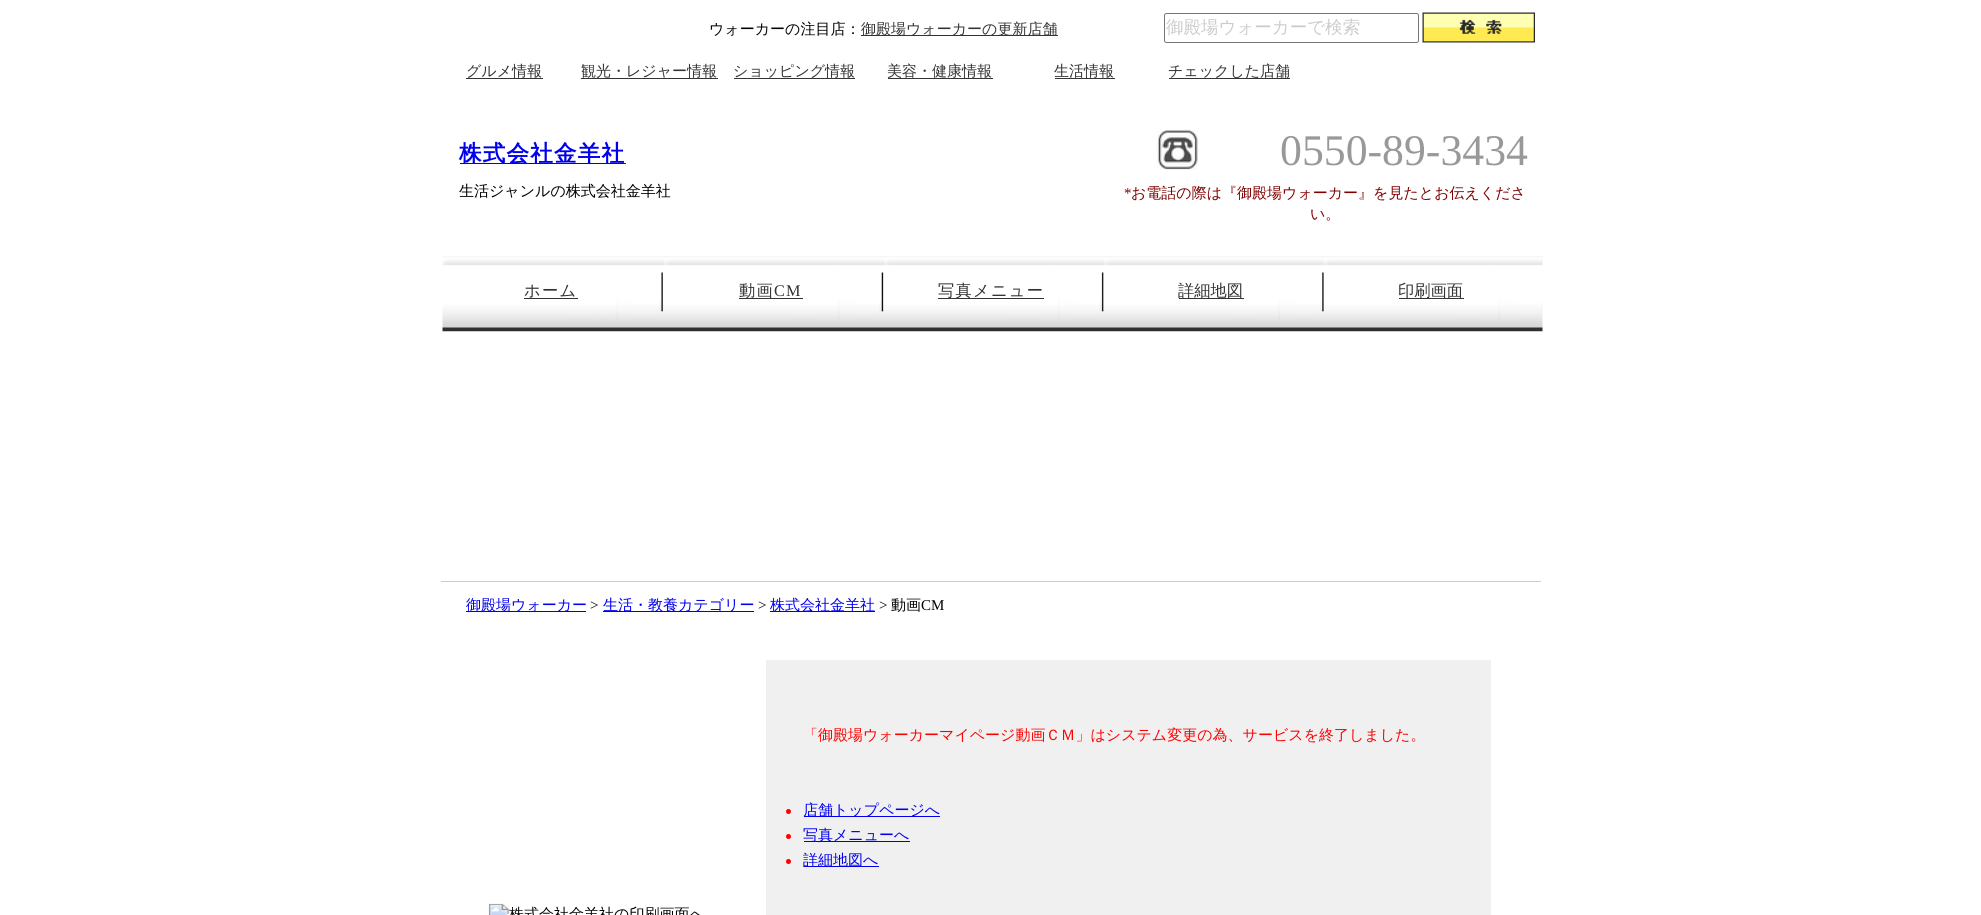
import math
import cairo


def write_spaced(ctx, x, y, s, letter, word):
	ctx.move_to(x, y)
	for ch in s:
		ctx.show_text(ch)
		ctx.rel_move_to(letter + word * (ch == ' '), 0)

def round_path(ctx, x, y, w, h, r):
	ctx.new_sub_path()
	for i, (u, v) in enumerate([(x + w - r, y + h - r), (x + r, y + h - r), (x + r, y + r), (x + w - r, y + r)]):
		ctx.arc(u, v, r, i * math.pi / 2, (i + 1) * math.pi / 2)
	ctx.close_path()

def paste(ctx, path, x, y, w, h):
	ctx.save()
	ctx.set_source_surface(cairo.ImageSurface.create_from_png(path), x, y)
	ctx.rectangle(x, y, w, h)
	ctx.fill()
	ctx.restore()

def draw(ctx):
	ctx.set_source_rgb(1, 1, 1)
	ctx.paint()
	ctx.select_font_face('WenQuanYi Zen Hei Medium')
	ctx.set_font_size(15)
	ctx.set_source_rgb(0, 0, 0)
	ctx.move_to(709, 34)
	ctx.show_text('ウォーカーの注目店：')
	ctx.set_source_rgb(0.2, 0.2, 0.2)
	ctx.rectangle(861, 35, 197, 1)
	ctx.fill()
	ctx.move_to(861, 34)
	ctx.show_text('御殿場ウォーカーの更新店舗')
	round_path(ctx, 1164.5, 13.5, 254, 29, 2)
	ctx.set_source_rgb(0.463, 0.463, 0.463)
	ctx.set_line_width(1)
	ctx.stroke()
	ctx.set_font_size(17.5)
	ctx.set_source_rgb(0.8, 0.8, 0.8)
	ctx.move_to(1166, 33)
	ctx.show_text('御殿場ウォーカーで検索')
	paste(ctx, 'media/1.png', 1422, 12, 113, 31)
	ctx.set_font_size(15)
	ctx.set_source_rgb(0.2, 0.2, 0.2)
	ctx.move_to(466, 76)
	ctx.show_text('グルメ情報')
	ctx.rectangle(466, 78, 77, 1)
	ctx.fill()
	ctx.move_to(581, 76)
	ctx.show_text('観光・レジャー情報')
	ctx.rectangle(581, 78, 137, 1)
	ctx.fill()
	ctx.move_to(733, 76)
	ctx.show_text('ショッピング情報')
	ctx.rectangle(734, 78, 121, 1)
	ctx.fill()
	ctx.move_to(887, 76)
	ctx.show_text('美容・健康情報')
	ctx.rectangle(888, 78, 105, 1)
	ctx.fill()
	ctx.move_to(1054, 76)
	ctx.show_text('生活情報')
	ctx.rectangle(1055, 78, 60, 1)
	ctx.fill()
	ctx.rectangle(1169, 78, 121, 1)
	ctx.fill()
	ctx.move_to(1168, 76)
	ctx.show_text('チェックした店舗')
	ctx.set_source_rgb(0, 0, 0.933)
	ctx.rectangle(460, 163, 166, 1)
	ctx.fill()
	ctx.select_font_face('WenQuanYi Zen Hei', cairo.FONT_SLANT_NORMAL, cairo.FONT_WEIGHT_BOLD)
	ctx.set_font_size(22.5)
	write_spaced(ctx, 459, 161, '株式会社金羊社', 1.25, 0)
	ctx.select_font_face('WenQuanYi Zen Hei Medium')
	ctx.set_font_size(15)
	ctx.set_source_rgb(0, 0, 0)
	ctx.move_to(459, 196)
	ctx.show_text('生活ジャンルの株式会社金羊社')
	paste(ctx, 'media/2.png', 1157, 129, 41, 41)
	ctx.select_font_face('Liberation Serif')
	ctx.set_font_size(43.75)
	ctx.set_source_rgb(0.6, 0.6, 0.6)
	ctx.move_to(1280, 165)
	ctx.show_text('0550-89-3434')
	ctx.set_font_size(15)
	ctx.set_source_rgb(0.502, 0, 0)
	ctx.move_to(1124, 198)
	ctx.show_text('*')
	ctx.select_font_face('WenQuanYi Zen Hei Medium')
	ctx.move_to(1131, 198)
	ctx.show_text('お電話の際は『御殿場ウォーカー』を見たとお伝えくださ')
	ctx.move_to(1310, 219)
	ctx.show_text('い。')
	paste(ctx, 'media/3.png', 442, 256, 1101, 76)
	ctx.set_font_size(16.25)
	ctx.set_source_rgb(0.2, 0.2, 0.2)
	write_spaced(ctx, 524, 296, 'ホーム', 1.25, 0)
	ctx.rectangle(524, 298, 54, 1)
	ctx.fill()
	ctx.rectangle(739, 298, 64, 1)
	ctx.fill()
	write_spaced(ctx, 739, 296, '動画', 1.25, 0)
	ctx.select_font_face('Liberation Serif')
	write_spaced(ctx, 774, 296, 'CM', 1.25, 0)
	ctx.rectangle(938, 298, 106, 1)
	ctx.fill()
	ctx.select_font_face('WenQuanYi Zen Hei Medium')
	write_spaced(ctx, 938, 296, '写真メニュー', 1.25, 0)
	ctx.rectangle(1179, 298, 65, 1)
	ctx.fill()
	ctx.move_to(1178, 296)
	ctx.show_text('詳細地図')
	ctx.rectangle(1399, 298, 65, 1)
	ctx.fill()
	ctx.move_to(1398, 296)
	ctx.show_text('印刷画面')
	ctx.set_source_rgb(0.8, 0.8, 0.8)
	ctx.rectangle(441, 581, 1100, 1)
	ctx.fill()
	ctx.set_source_rgb(0, 0, 0.933)
	ctx.rectangle(466, 611, 120, 1)
	ctx.fill()
	ctx.set_font_size(15)
	ctx.move_to(466, 610)
	ctx.show_text('御殿場ウォーカー')
	ctx.select_font_face('Liberation Serif')
	ctx.set_source_rgb(0, 0, 0)
	ctx.move_to(590, 610)
	ctx.show_text('>')
	ctx.set_source_rgb(0, 0, 0.933)
	ctx.rectangle(603, 611, 151, 1)
	ctx.fill()
	ctx.select_font_face('WenQuanYi Zen Hei Medium')
	ctx.move_to(603, 610)
	ctx.show_text('生活・教養カテゴリー')
	ctx.select_font_face('Liberation Serif')
	ctx.set_source_rgb(0, 0, 0)
	ctx.move_to(758, 610)
	ctx.show_text('>')
	ctx.set_source_rgb(0, 0, 0.933)
	ctx.rectangle(770, 611, 105, 1)
	ctx.fill()
	ctx.select_font_face('WenQuanYi Zen Hei Medium')
	ctx.move_to(770, 610)
	ctx.show_text('株式会社金羊社')
	ctx.select_font_face('Liberation Serif')
	ctx.set_source_rgb(0, 0, 0)
	ctx.move_to(879, 610)
	ctx.show_text('>')
	ctx.select_font_face('WenQuanYi Zen Hei Medium')
	ctx.move_to(891, 610)
	ctx.show_text('動画')
	ctx.select_font_face('Liberation Serif')
	ctx.move_to(921, 610)
	ctx.show_text('CM')
	ctx.set_source_rgb(0.941, 0.941, 0.941)
	ctx.rectangle(766, 660, 725, 255)
	ctx.fill()
	ctx.select_font_face('WenQuanYi Zen Hei Medium')
	ctx.set_source_rgb(1, 0, 0)
	ctx.move_to(803, 740)
	ctx.show_text('「御殿場ウォーカーマイページ動画ＣＭ」はシステム変更の為、サービスを終了しました。')
	ctx.new_path()
	ctx.arc(788.5, 811.5, 2.5, 0, 2 * math.pi)
	ctx.fill()
	ctx.set_source_rgb(0, 0, 0.933)
	ctx.rectangle(804, 816, 136, 1)
	ctx.fill()
	ctx.move_to(803, 815)
	ctx.show_text('店舗トップページへ')
	ctx.set_source_rgb(1, 0, 0)
	ctx.new_path()
	ctx.arc(788.5, 836.5, 2.5, 0, 2 * math.pi)
	ctx.fill()
	ctx.set_source_rgb(0, 0, 0.933)
	ctx.rectangle(804, 841, 106, 1)
	ctx.fill()
	ctx.move_to(803, 840)
	ctx.show_text('写真メニューへ')
	ctx.set_source_rgb(1, 0, 0)
	ctx.new_path()
	ctx.arc(788.5, 861.5, 2.5, 0, 2 * math.pi)
	ctx.fill()
	ctx.set_source_rgb(0, 0, 0.933)
	ctx.rectangle(804, 866, 75, 1)
	ctx.fill()
	ctx.move_to(803, 865)
	ctx.show_text('詳細地図へ')
	paste(ctx, 'media/4.png', 488, 903, 212, 12)


surface = cairo.ImageSurface(cairo.FORMAT_RGB24, 1981, 915)
ctx = cairo.Context(surface)
options = cairo.FontOptions()
options.set_hint_metrics(cairo.HINT_METRICS_OFF)
options.set_hint_style(cairo.HINT_STYLE_NONE)
ctx.set_font_options(options)
ctx.set_miter_limit(4)
draw(ctx)
surface.write_to_png('image.png')
